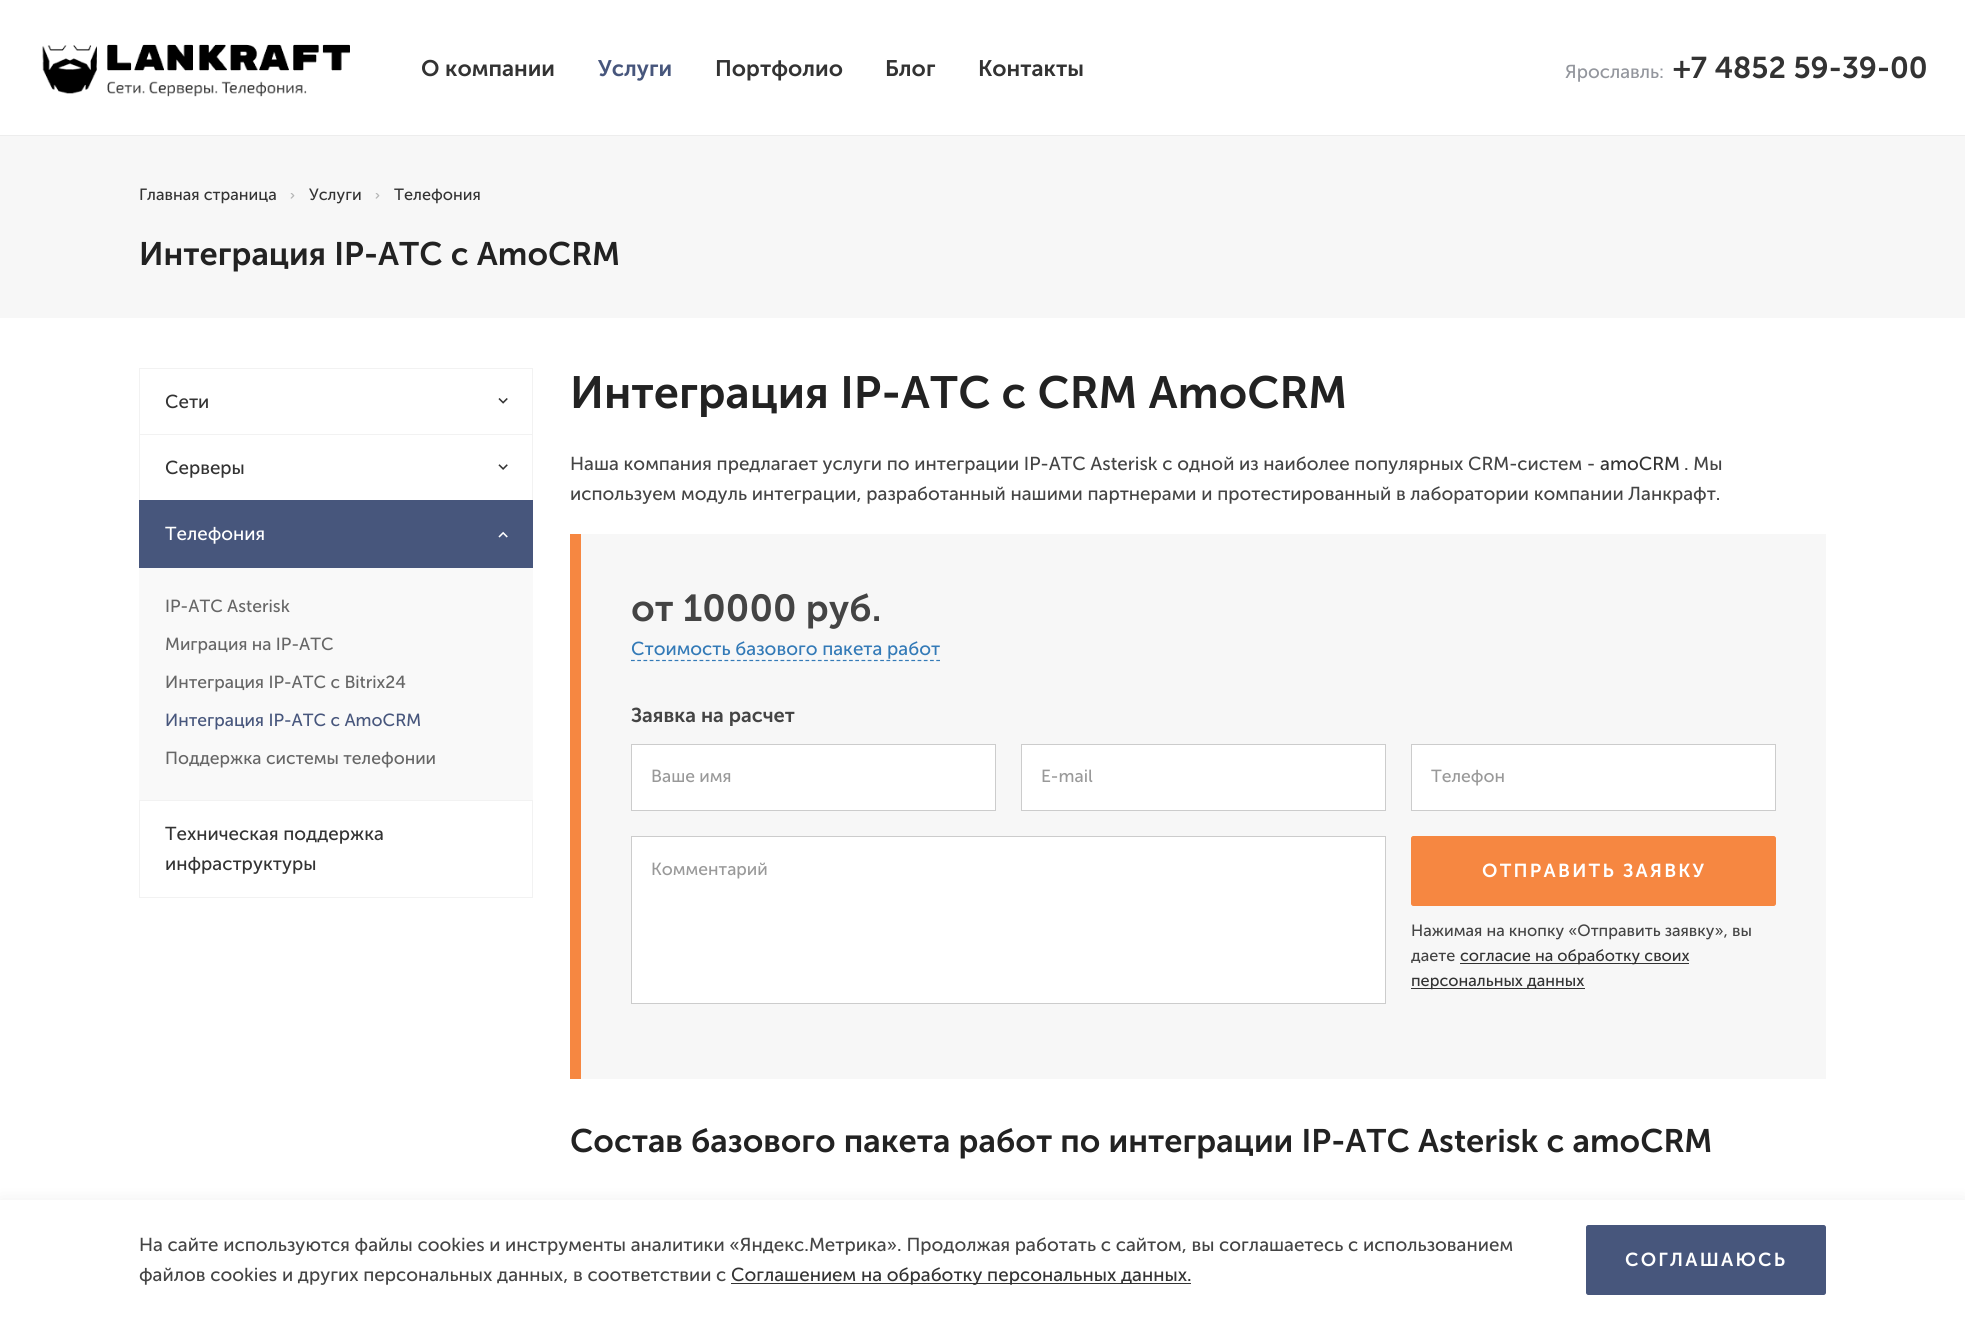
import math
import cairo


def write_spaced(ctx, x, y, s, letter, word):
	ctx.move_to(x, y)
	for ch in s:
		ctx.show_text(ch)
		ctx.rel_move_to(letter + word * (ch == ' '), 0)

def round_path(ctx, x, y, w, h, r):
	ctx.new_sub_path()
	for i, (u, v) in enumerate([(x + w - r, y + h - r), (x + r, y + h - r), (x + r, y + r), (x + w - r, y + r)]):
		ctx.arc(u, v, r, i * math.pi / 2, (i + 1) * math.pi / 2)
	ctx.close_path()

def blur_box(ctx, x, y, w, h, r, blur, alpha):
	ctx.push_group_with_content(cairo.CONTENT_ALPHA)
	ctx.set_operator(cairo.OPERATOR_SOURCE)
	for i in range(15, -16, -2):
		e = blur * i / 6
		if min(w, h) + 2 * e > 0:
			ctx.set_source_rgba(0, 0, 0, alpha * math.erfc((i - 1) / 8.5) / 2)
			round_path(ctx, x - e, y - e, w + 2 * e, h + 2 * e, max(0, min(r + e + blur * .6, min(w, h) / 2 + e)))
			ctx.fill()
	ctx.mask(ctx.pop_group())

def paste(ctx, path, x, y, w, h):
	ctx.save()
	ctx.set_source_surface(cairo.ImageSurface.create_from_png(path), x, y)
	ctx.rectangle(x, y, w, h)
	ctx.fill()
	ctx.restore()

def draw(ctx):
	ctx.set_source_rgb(1, 1, 1)
	ctx.paint()
	paste(ctx, 'media/1.png', 42, 44, 308, 53)
	ctx.select_font_face('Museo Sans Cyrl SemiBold')
	ctx.set_font_size(22.5)
	ctx.set_source_rgb(0.2, 0.2, 0.2)
	ctx.move_to(421, 76)
	ctx.show_text('О компании')
	ctx.set_source_rgb(0.278, 0.337, 0.486)
	ctx.move_to(598, 76)
	ctx.show_text('Услуги')
	ctx.set_source_rgb(0.2, 0.2, 0.2)
	for x, y, s in [
		(715, 76, 'Портфолио'),
		(885, 76, 'Блог'),
		(978, 76, 'Контакты'),
	]:
		ctx.move_to(x, y)
		ctx.show_text(s)
	ctx.select_font_face('Museo Sans Cyrl')
	ctx.set_font_size(18.75)
	ctx.set_source_rgb(0.576, 0.588, 0.616)
	ctx.move_to(1565, 78)
	ctx.show_text('Ярославль:')
	ctx.select_font_face('Museo Sans Cyrl SemiBold')
	ctx.set_font_size(30)
	ctx.set_source_rgb(0.2, 0.2, 0.2)
	ctx.move_to(1673, 78)
	ctx.show_text('+7 4852 59-39-00')
	ctx.set_source_rgb(0.965, 0.965, 0.965)
	ctx.rectangle(0, 136, 1965, 182)
	ctx.fill()
	ctx.set_source_rgb(0.929, 0.929, 0.929)
	ctx.rectangle(0, 135, 1965, 1)
	ctx.fill()
	ctx.select_font_face('Museo Sans Cyrl')
	ctx.set_font_size(16.25)
	ctx.set_source_rgb(0.2, 0.2, 0.2)
	ctx.move_to(139, 200)
	ctx.show_text('Главная страница')
	paste(ctx, 'media/2.png', 290, 193, 5, 6)
	ctx.move_to(309, 200)
	ctx.show_text('Услуги')
	paste(ctx, 'media/2.png', 375, 193, 5, 6)
	ctx.move_to(394, 200)
	ctx.show_text('Телефония')
	ctx.select_font_face('Museo Sans Cyrl SemiBold')
	ctx.set_font_size(32.5)
	ctx.set_source_rgb(0.133, 0.133, 0.133)
	ctx.move_to(139, 265)
	ctx.show_text('Интеграция IP-АТС с AmoCRM')
	ctx.rectangle(139.5, 368.5, 393, 66)
	ctx.set_source_rgb(0.949, 0.949, 0.949)
	ctx.set_line_width(1)
	ctx.stroke()
	ctx.select_font_face('Museo Sans Cyrl')
	ctx.set_font_size(18.75)
	ctx.set_source_rgb(0.2, 0.2, 0.2)
	ctx.move_to(165, 408)
	ctx.show_text('Сети')
	paste(ctx, 'media/3.png', 498, 398, 10, 6)
	ctx.rectangle(139.5, 434.5, 393, 66)
	ctx.set_source_rgb(0.949, 0.949, 0.949)
	ctx.stroke()
	ctx.set_source_rgb(0.2, 0.2, 0.2)
	ctx.move_to(165, 474)
	ctx.show_text('Серверы')
	paste(ctx, 'media/4.png', 498, 464, 10, 6)
	ctx.set_source_rgb(0.278, 0.337, 0.486)
	ctx.rectangle(139, 500, 394, 68)
	ctx.fill()
	ctx.set_source_rgb(1, 1, 1)
	ctx.move_to(165, 540)
	ctx.show_text('Телефония')
	paste(ctx, 'media/5.png', 498, 531, 10, 7)
	ctx.set_source_rgb(0.976, 0.976, 0.976)
	ctx.rectangle(139, 568, 394, 232)
	ctx.fill()
	ctx.set_font_size(17.5)
	ctx.set_source_rgb(0.4, 0.4, 0.4)
	for x, y, s in [
		(165, 612, 'IP-АТС Asterisk'),
		(165, 650, 'Миграция на IP-АТС'),
		(165, 688, 'Интеграция IP-АТС с Bitrix24'),
	]:
		ctx.move_to(x, y)
		ctx.show_text(s)
	ctx.set_source_rgb(0.278, 0.337, 0.486)
	ctx.move_to(165, 726)
	ctx.show_text('Интеграция IP-АТС с AmoCRM')
	ctx.set_source_rgb(0.4, 0.4, 0.4)
	ctx.move_to(165, 764)
	ctx.show_text('Поддержка системы телефонии')
	ctx.rectangle(139.5, 800.5, 393, 97)
	ctx.set_source_rgb(0.949, 0.949, 0.949)
	ctx.stroke()
	ctx.set_font_size(18.75)
	ctx.set_source_rgb(0.2, 0.2, 0.2)
	ctx.move_to(165, 840)
	ctx.show_text('Техническая поддержка')
	ctx.move_to(165, 870)
	ctx.show_text('инфраструктуры')
	ctx.select_font_face('Museo Sans Cyrl SemiBold')
	ctx.set_font_size(45)
	ctx.set_source_rgb(0.133, 0.133, 0.133)
	ctx.move_to(570, 408)
	ctx.show_text('Интеграция IP-АТС с CRM AmoCRM')
	ctx.select_font_face('Museo Sans Cyrl')
	ctx.set_font_size(18.75)
	ctx.set_source_rgb(0.267, 0.267, 0.267)
	ctx.move_to(570, 470)
	ctx.show_text('Наша компания предлагает услуги по интеграции IP-АТС Asterisk с одной из наиболее популярных CRM-систем -')
	ctx.set_source_rgb(0.2, 0.2, 0.2)
	ctx.move_to(1600, 470)
	ctx.show_text('amoCRM')
	ctx.set_source_rgb(0.267, 0.267, 0.267)
	ctx.move_to(1684, 470)
	ctx.show_text('. Мы')
	ctx.move_to(570, 500)
	ctx.show_text('используем модуль интеграции, разработанный нашими партнерами и протестированный в лаборатории компании Ланкрафт.')
	ctx.set_source_rgb(0.965, 0.965, 0.965)
	ctx.rectangle(581, 534, 1245, 545)
	ctx.fill()
	ctx.set_source_rgb(0.961, 0.529, 0.255)
	ctx.rectangle(570, 534, 11, 545)
	ctx.fill()
	ctx.select_font_face('Museo Sans Cyrl SemiBold')
	ctx.set_font_size(37.5)
	ctx.set_source_rgb(0.267, 0.267, 0.267)
	ctx.move_to(631, 621)
	ctx.show_text('от 10000 руб.')
	ctx.select_font_face('Museo Sans Cyrl')
	ctx.set_font_size(18.75)
	ctx.set_source_rgb(0.2, 0.478, 0.718)
	ctx.move_to(631, 655)
	ctx.show_text('Стоимость базового пакета работ')
	ctx.new_path()
	ctx.move_to(631, 660.5)
	ctx.line_to(940, 660.5)
	ctx.set_line_width(1.2)
	ctx.set_dash([3.75, 2.48])
	ctx.stroke()
	ctx.select_font_face('Museo Sans Cyrl SemiBold')
	ctx.set_font_size(20)
	ctx.set_source_rgb(0.267, 0.267, 0.267)
	ctx.move_to(631, 722)
	ctx.show_text('Заявка на расчет')
	ctx.set_source_rgb(1, 1, 1)
	ctx.rectangle(631.5, 744.5, 364, 66)
	ctx.fill_preserve()
	ctx.set_source_rgb(0.8, 0.8, 0.8)
	ctx.set_line_width(1)
	ctx.set_dash([])
	ctx.stroke()
	ctx.select_font_face('Museo Sans Cyrl')
	ctx.set_font_size(17.5)
	ctx.set_source_rgb(0.6, 0.6, 0.6)
	ctx.move_to(651, 782)
	ctx.show_text('Ваше имя')
	ctx.set_source_rgb(1, 1, 1)
	ctx.rectangle(1021.5, 744.5, 364, 66)
	ctx.fill_preserve()
	ctx.set_source_rgb(0.8, 0.8, 0.8)
	ctx.stroke()
	ctx.set_source_rgb(0.6, 0.6, 0.6)
	ctx.move_to(1041, 782)
	ctx.show_text('E-mail')
	ctx.set_source_rgb(1, 1, 1)
	ctx.rectangle(1411.5, 744.5, 364, 66)
	ctx.fill_preserve()
	ctx.set_source_rgb(0.8, 0.8, 0.8)
	ctx.stroke()
	ctx.set_source_rgb(0.6, 0.6, 0.6)
	ctx.move_to(1431, 782)
	ctx.show_text('Телефон')
	ctx.set_source_rgb(1, 1, 1)
	ctx.rectangle(631.5, 836.5, 754, 167)
	ctx.fill_preserve()
	ctx.set_source_rgb(0.8, 0.8, 0.8)
	ctx.stroke()
	ctx.set_source_rgb(0.6, 0.6, 0.6)
	ctx.move_to(651, 875)
	ctx.show_text('Комментарий')
	ctx.set_source_rgb(0.961, 0.529, 0.255)
	round_path(ctx, 1411.5, 836.5, 364, 69, 2)
	ctx.fill_preserve()
	ctx.stroke()
	ctx.select_font_face('Museo Sans Cyrl SemiBold')
	ctx.set_font_size(18.75)
	ctx.set_source_rgb(1, 1, 1)
	write_spaced(ctx, 1482, 877, 'ОТПРАВИТЬ ЗАЯВКУ', 2.25, 0)
	ctx.select_font_face('Museo Sans Cyrl')
	ctx.set_font_size(16.25)
	ctx.set_source_rgb(0.267, 0.267, 0.267)
	ctx.move_to(1411, 936)
	ctx.show_text('Нажимая на кнопку «Отправить заявку», вы')
	ctx.move_to(1411, 961)
	ctx.show_text('даете')
	ctx.set_source_rgb(0.2, 0.2, 0.2)
	ctx.rectangle(1460, 963, 229, 1)
	ctx.fill()
	ctx.move_to(1460, 961)
	ctx.show_text('согласие на обработку своих')
	ctx.rectangle(1411, 988, 174, 1)
	ctx.fill()
	ctx.move_to(1411, 986)
	ctx.show_text('персональных данных')
	ctx.select_font_face('Museo Sans Cyrl SemiBold')
	ctx.set_font_size(32.5)
	ctx.set_source_rgb(0.133, 0.133, 0.133)
	ctx.move_to(570, 1152)
	ctx.show_text('Состав базового пакета работ по интеграции IP-АТС Asterisk с amoCRM')
	ctx.set_source_rgb(0, 0, 0)
	blur_box(ctx, 0, 1203, 1965, 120, 0, 10, 0.08)
	ctx.set_source_rgb(1, 1, 1)
	ctx.rectangle(0, 1200, 1965, 120)
	ctx.fill()
	ctx.select_font_face('Museo Sans Cyrl')
	ctx.set_font_size(18.75)
	ctx.set_source_rgb(0.267, 0.267, 0.267)
	ctx.move_to(139, 1251)
	ctx.show_text('На сайте используются файлы cookies и инструменты аналитики «Яндекс.Метрика». Продолжая работать с сайтом, вы соглашаетесь с использованием')
	ctx.move_to(139, 1281)
	ctx.show_text('файлов cookies и других персональных данных, в соответствии с')
	ctx.set_source_rgb(0.2, 0.2, 0.2)
	ctx.rectangle(731, 1283, 460, 1)
	ctx.fill()
	ctx.move_to(731, 1281)
	ctx.show_text('Соглашением на обработку персональных данных.')
	ctx.set_source_rgb(0.278, 0.337, 0.486)
	round_path(ctx, 1586.5, 1225.5, 239, 69, 2)
	ctx.fill_preserve()
	ctx.stroke()
	ctx.select_font_face('Museo Sans Cyrl SemiBold')
	ctx.set_source_rgb(1, 1, 1)
	write_spaced(ctx, 1625, 1266, 'СОГЛАШАЮСЬ', 2.25, 0)


surface = cairo.ImageSurface(cairo.FORMAT_RGB24, 1965, 1320)
ctx = cairo.Context(surface)
options = cairo.FontOptions()
options.set_hint_metrics(cairo.HINT_METRICS_OFF)
options.set_hint_style(cairo.HINT_STYLE_NONE)
ctx.set_font_options(options)
ctx.set_miter_limit(4)
draw(ctx)
surface.write_to_png('image.png')
